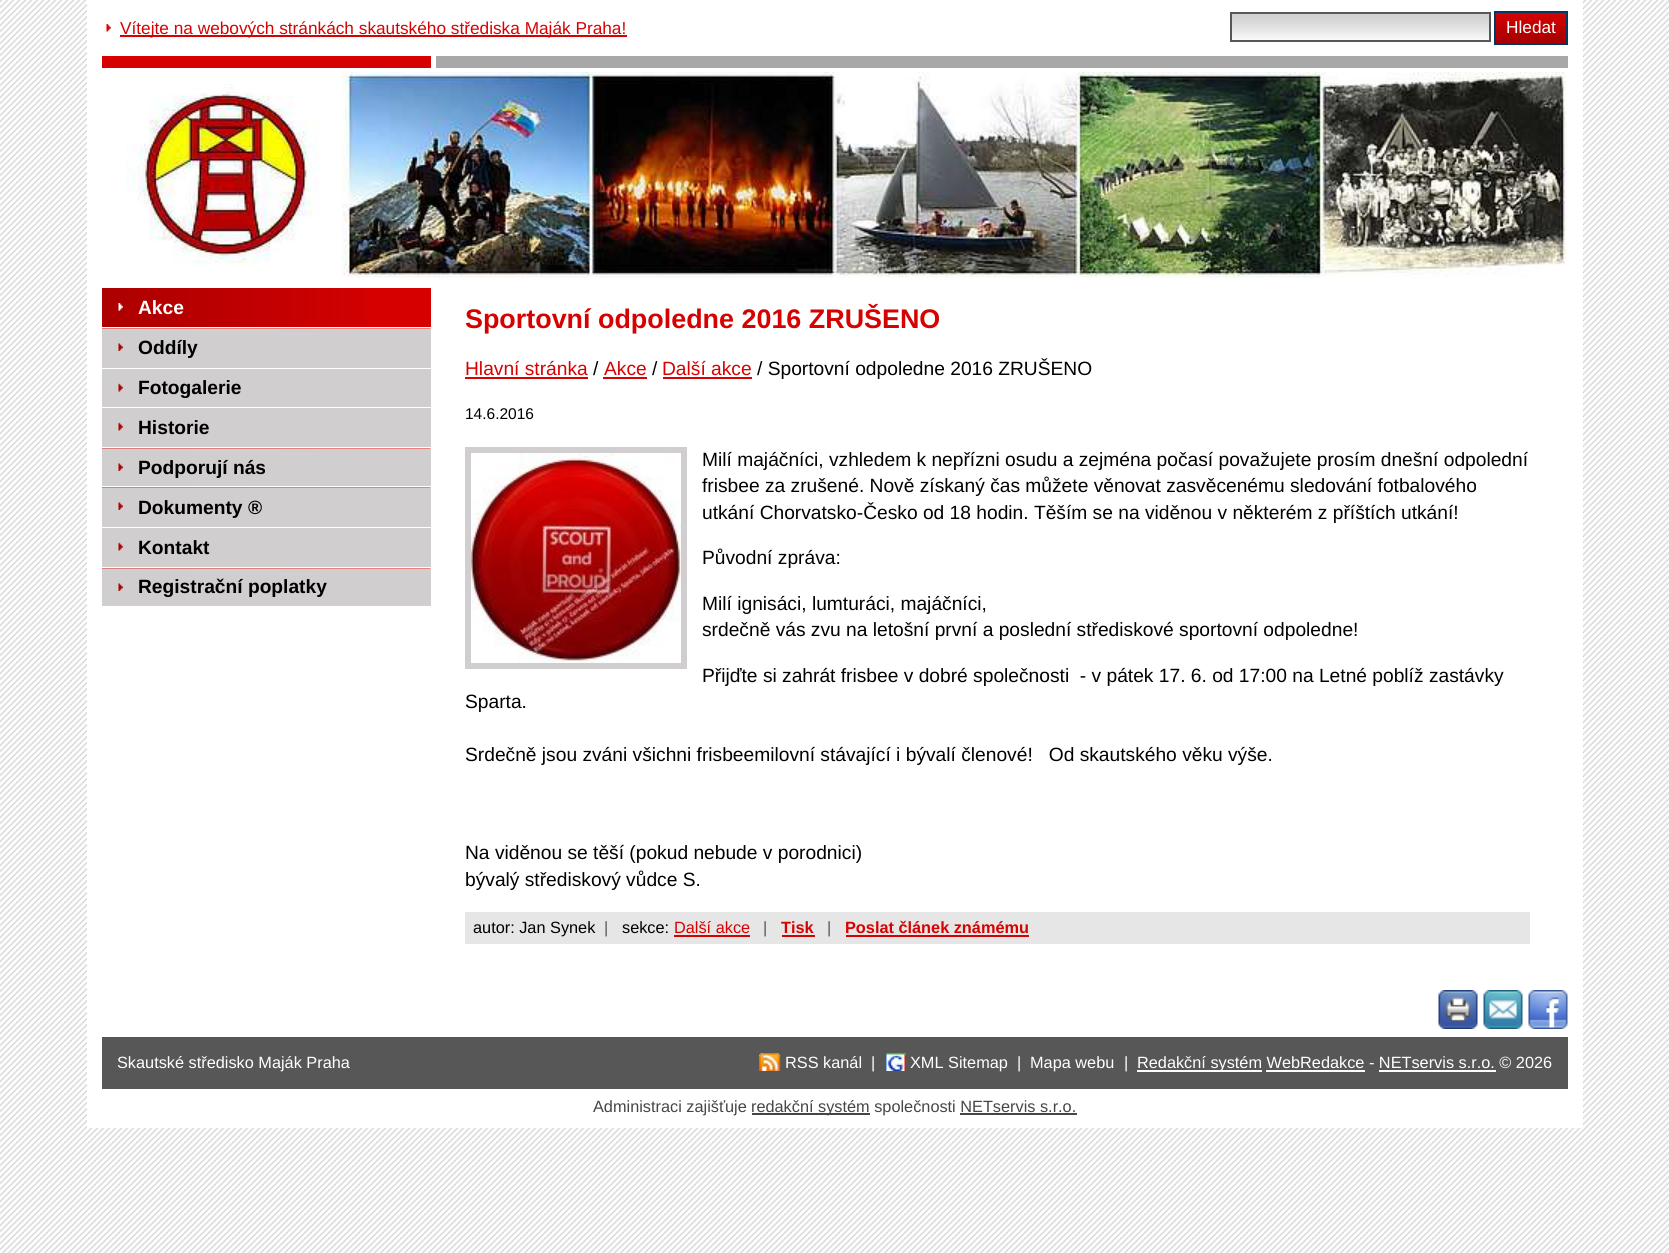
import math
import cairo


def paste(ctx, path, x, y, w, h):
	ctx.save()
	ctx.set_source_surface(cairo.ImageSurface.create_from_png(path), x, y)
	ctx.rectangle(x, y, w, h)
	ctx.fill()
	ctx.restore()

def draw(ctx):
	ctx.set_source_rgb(1, 1, 1)
	ctx.paint()
	paste(ctx, 'media/1.png', 0, 1128, 1669, 125)
	paste(ctx, 'media/2.png', 0, 0, 1669, 1128)
	ctx.set_source_rgb(1, 1, 1)
	ctx.rectangle(87, 0, 1496, 1128)
	ctx.fill()
	paste(ctx, 'media/3.png', 106, 24, 5, 8)
	ctx.set_source_rgb(0.839, 0.004, 0.004)
	ctx.rectangle(120, 35, 507, 2)
	ctx.fill()
	ctx.select_font_face('Liberation Sans')
	ctx.set_font_size(17.25)
	ctx.move_to(120, 34)
	ctx.show_text('Vítejte na webových stránkách skautského střediska Maják Praha!')
	paste(ctx, 'media/4.png', 1232, 14, 257, 26)
	ctx.rectangle(1231, 13, 259, 28)
	ctx.set_source_rgb(0.341, 0.341, 0.341)
	ctx.stroke()
	ctx.set_source_rgb(0.839, 0.004, 0.004)
	ctx.rectangle(1496, 13, 70, 2)
	ctx.fill()
	paste(ctx, 'media/5.png', 1496, 15, 70, 28)
	ctx.rectangle(1495, 12, 72, 32)
	ctx.set_source_rgb(0.02, 0.216, 0.396)
	ctx.stroke()
	ctx.set_source_rgb(1, 1, 1)
	ctx.move_to(1506, 33)
	ctx.show_text('Hledat')
	ctx.set_source_rgb(0.839, 0.004, 0.004)
	ctx.rectangle(102, 56, 329, 12)
	ctx.fill()
	ctx.set_source_rgb(0.659, 0.659, 0.659)
	ctx.rectangle(436, 56, 1132, 12)
	ctx.fill()
	paste(ctx, 'media/6.png', 126, 72, 1441, 206)
	ctx.set_source_rgb(0.839, 0, 0.004)
	ctx.rectangle(369, 288, 62, 39)
	ctx.fill()
	paste(ctx, 'media/7.png', 102, 288, 267, 39)
	paste(ctx, 'media/8.png', 118, 303, 5, 8)
	ctx.select_font_face('Liberation Sans', cairo.FONT_SLANT_NORMAL, cairo.FONT_WEIGHT_BOLD)
	ctx.set_font_size(19.2)
	ctx.set_source_rgb(1, 1, 1)
	ctx.move_to(138, 314)
	ctx.show_text('Akce')
	paste(ctx, 'media/9.png', 102, 328, 329, 1)
	ctx.set_source_rgb(0.816, 0.808, 0.808)
	ctx.rectangle(102, 329, 329, 39)
	ctx.fill()
	paste(ctx, 'media/10.png', 118, 343, 5, 8)
	ctx.set_source_rgb(0, 0, 0)
	ctx.move_to(138, 354)
	ctx.show_text('Oddíly')
	ctx.set_source_rgb(0.816, 0.808, 0.808)
	ctx.rectangle(102, 369, 329, 38)
	ctx.fill()
	paste(ctx, 'media/11.png', 118, 383, 5, 9)
	ctx.set_source_rgb(0, 0, 0)
	ctx.move_to(138, 394)
	ctx.show_text('Fotogalerie')
	ctx.set_source_rgb(0.816, 0.808, 0.808)
	ctx.rectangle(102, 408, 329, 39)
	ctx.fill()
	paste(ctx, 'media/11.png', 118, 422, 5, 9)
	ctx.set_source_rgb(0, 0, 0)
	ctx.move_to(138, 434)
	ctx.show_text('Historie')
	paste(ctx, 'media/9.png', 102, 448, 329, 1)
	ctx.set_source_rgb(0.816, 0.808, 0.808)
	ctx.rectangle(102, 449, 329, 37)
	ctx.fill()
	paste(ctx, 'media/10.png', 118, 463, 5, 8)
	ctx.set_source_rgb(0, 0, 0)
	ctx.move_to(138, 474)
	ctx.show_text('Podporují nás')
	paste(ctx, 'media/9.png', 102, 487, 329, 1)
	ctx.set_source_rgb(0.816, 0.808, 0.808)
	ctx.rectangle(102, 488, 329, 39)
	ctx.fill()
	paste(ctx, 'media/10.png', 118, 502, 5, 8)
	ctx.set_source_rgb(0, 0, 0)
	ctx.move_to(138, 514)
	ctx.show_text('Dokumenty ®')
	ctx.set_source_rgb(0.816, 0.808, 0.808)
	ctx.rectangle(102, 528, 329, 39)
	ctx.fill()
	paste(ctx, 'media/11.png', 118, 542, 5, 9)
	ctx.set_source_rgb(0, 0, 0)
	ctx.move_to(138, 554)
	ctx.show_text('Kontakt')
	paste(ctx, 'media/9.png', 102, 568, 329, 1)
	ctx.set_source_rgb(0.816, 0.808, 0.808)
	ctx.rectangle(102, 569, 329, 37)
	ctx.fill()
	paste(ctx, 'media/10.png', 118, 583, 5, 8)
	ctx.set_source_rgb(0, 0, 0)
	ctx.move_to(138, 593)
	ctx.show_text('Registrační poplatky')
	ctx.set_font_size(26.9)
	ctx.set_source_rgb(0.839, 0.004, 0.004)
	ctx.move_to(465, 328)
	ctx.show_text('Sportovní odpoledne 2016 ZRUŠENO')
	ctx.select_font_face('Liberation Sans')
	ctx.set_font_size(19.2)
	ctx.move_to(465, 375)
	ctx.show_text('Hlavní stránka')
	ctx.rectangle(465, 377, 123, 2)
	ctx.fill()
	ctx.set_source_rgb(0, 0, 0)
	ctx.move_to(593, 375)
	ctx.show_text('/')
	ctx.set_source_rgb(0.839, 0.004, 0.004)
	ctx.move_to(604, 375)
	ctx.show_text('Akce')
	ctx.rectangle(603, 377, 44, 2)
	ctx.fill()
	ctx.set_source_rgb(0, 0, 0)
	ctx.move_to(652, 375)
	ctx.show_text('/')
	ctx.set_source_rgb(0.839, 0.004, 0.004)
	ctx.move_to(662, 375)
	ctx.show_text('Další akce')
	ctx.rectangle(663, 377, 89, 2)
	ctx.fill()
	ctx.set_source_rgb(0, 0, 0)
	ctx.move_to(757, 375)
	ctx.show_text('/ Sportovní odpoledne 2016 ZRUŠENO')
	ctx.set_font_size(15.5)
	ctx.move_to(465, 419)
	ctx.show_text('14.6.2016')
	ctx.rectangle(468, 450, 216, 216)
	ctx.set_source_rgb(0.816, 0.808, 0.808)
	ctx.set_line_width(6)
	ctx.stroke()
	paste(ctx, 'media/12.png', 471, 453, 210, 210)
	ctx.set_font_size(19.2)
	ctx.set_source_rgb(0, 0, 0)
	for x, y, s in [
		(702, 466, 'Milí majáčníci, vzhledem k nepřízni osudu a zejména počasí považujete prosím dnešní odpolední'),
		(702, 492, 'frisbee za zrušené. Nově získaný čas můžete věnovat zasvěcenému sledování fotbalového'),
		(702, 519, 'utkání Chorvatsko-Česko od 18 hodin. Těším se na viděnou v některém z příštích utkání!'),
		(702, 564, 'Původní zpráva:'),
		(702, 610, 'Milí ignisáci, lumturáci, majáčníci,'),
		(702, 636, 'srdečně vás zvu na letošní první a poslední střediskové sportovní odpoledne!'),
		(702, 682, 'Přijďte si zahrát frisbee v dobré společnosti  - v pátek 17. 6. od 17:00 na Letné poblíž zastávky'),
		(465, 708, 'Sparta.'),
		(465, 761, 'Srdečně jsou zváni všichni frisbeemilovní stávající i bývalí členové!   Od skautského věku výše.'),
		(465, 859, 'Na viděnou se těší (pokud nebude v porodnici)'),
		(465, 886, 'bývalý střediskový vůdce S.'),
	]:
		ctx.move_to(x, y)
		ctx.show_text(s)
	ctx.set_source_rgb(0.902, 0.902, 0.902)
	ctx.rectangle(465, 912, 1065, 32)
	ctx.fill()
	ctx.set_font_size(16.3)
	ctx.set_source_rgb(0, 0, 0)
	ctx.move_to(473, 933)
	ctx.show_text('autor: Jan Synek')
	ctx.set_source_rgb(0.341, 0.341, 0.341)
	ctx.move_to(604, 933)
	ctx.show_text('|')
	ctx.set_source_rgb(0, 0, 0)
	ctx.move_to(622, 933)
	ctx.show_text('sekce:')
	ctx.set_source_rgb(0.839, 0.004, 0.004)
	ctx.move_to(674, 933)
	ctx.show_text('Další akce')
	ctx.rectangle(674, 935, 76, 2)
	ctx.fill()
	ctx.set_source_rgb(0.341, 0.341, 0.341)
	ctx.move_to(763, 933)
	ctx.show_text('|')
	ctx.select_font_face('Liberation Sans', cairo.FONT_SLANT_NORMAL, cairo.FONT_WEIGHT_BOLD)
	ctx.set_source_rgb(0.839, 0.004, 0.004)
	ctx.move_to(781, 933)
	ctx.show_text('Tisk')
	ctx.rectangle(782, 935, 33, 2)
	ctx.fill()
	ctx.select_font_face('Liberation Sans')
	ctx.set_source_rgb(0.341, 0.341, 0.341)
	ctx.move_to(827, 933)
	ctx.show_text('|')
	ctx.select_font_face('Liberation Sans', cairo.FONT_SLANT_NORMAL, cairo.FONT_WEIGHT_BOLD)
	ctx.set_source_rgb(0.839, 0.004, 0.004)
	ctx.move_to(845, 933)
	ctx.show_text('Poslat článek známému')
	ctx.rectangle(846, 935, 183, 2)
	ctx.fill()
	paste(ctx, 'media/13.png', 1438, 990, 40, 39)
	paste(ctx, 'media/14.png', 1483, 990, 40, 39)
	paste(ctx, 'media/15.png', 1528, 990, 40, 39)
	ctx.set_source_rgb(0.341, 0.341, 0.341)
	ctx.rectangle(102, 1037, 1466, 52)
	ctx.fill()
	ctx.select_font_face('Liberation Sans')
	ctx.set_source_rgb(1, 1, 1)
	ctx.move_to(117, 1068)
	ctx.show_text('Skautské středisko Maják Praha')
	paste(ctx, 'media/16.png', 759, 1053, 22, 18)
	ctx.move_to(785, 1068)
	ctx.show_text('RSS kanál')
	ctx.move_to(871, 1068)
	ctx.show_text('|')
	paste(ctx, 'media/17.png', 885, 1053, 22, 18)
	for x, y, s in [
		(910, 1068, 'XML Sitemap'),
		(1017, 1068, '|'),
		(1030, 1068, 'Mapa webu'),
		(1124, 1068, '|'),
	]:
		ctx.move_to(x, y)
		ctx.show_text(s)
	ctx.rectangle(1137, 1070, 125, 2)
	ctx.fill()
	ctx.move_to(1137, 1068)
	ctx.show_text('Redakční systém WebRedakce - NETservis s.r.o. © 2026')
	ctx.rectangle(1266, 1070, 99, 2)
	ctx.fill()
	ctx.rectangle(1379, 1070, 117, 2)
	ctx.fill()
	ctx.set_source_rgb(0.275, 0.275, 0.275)
	ctx.move_to(593, 1112)
	ctx.show_text('Administraci zajišťuje')
	ctx.rectangle(752, 1113, 118, 2)
	ctx.fill()
	ctx.move_to(751, 1112)
	ctx.show_text('redakční systém společnosti NETservis s.r.o.')
	ctx.rectangle(960, 1113, 117, 2)
	ctx.fill()


surface = cairo.ImageSurface(cairo.FORMAT_RGB24, 1669, 1253)
ctx = cairo.Context(surface)
options = cairo.FontOptions()
options.set_hint_metrics(cairo.HINT_METRICS_OFF)
options.set_hint_style(cairo.HINT_STYLE_NONE)
ctx.set_font_options(options)
ctx.set_miter_limit(4)
draw(ctx)
surface.write_to_png('image.png')
